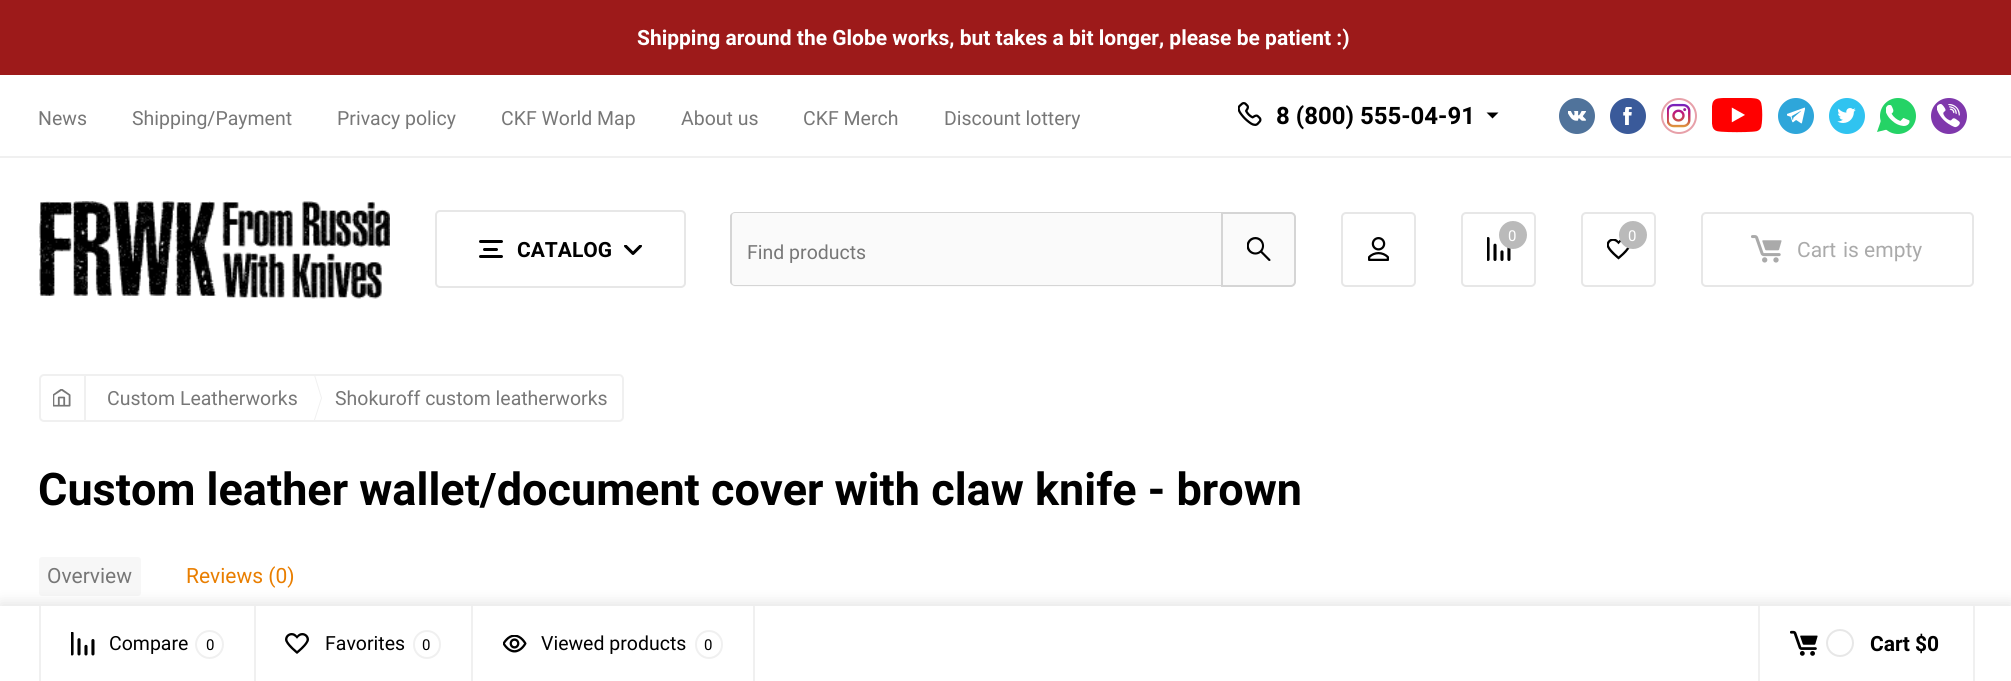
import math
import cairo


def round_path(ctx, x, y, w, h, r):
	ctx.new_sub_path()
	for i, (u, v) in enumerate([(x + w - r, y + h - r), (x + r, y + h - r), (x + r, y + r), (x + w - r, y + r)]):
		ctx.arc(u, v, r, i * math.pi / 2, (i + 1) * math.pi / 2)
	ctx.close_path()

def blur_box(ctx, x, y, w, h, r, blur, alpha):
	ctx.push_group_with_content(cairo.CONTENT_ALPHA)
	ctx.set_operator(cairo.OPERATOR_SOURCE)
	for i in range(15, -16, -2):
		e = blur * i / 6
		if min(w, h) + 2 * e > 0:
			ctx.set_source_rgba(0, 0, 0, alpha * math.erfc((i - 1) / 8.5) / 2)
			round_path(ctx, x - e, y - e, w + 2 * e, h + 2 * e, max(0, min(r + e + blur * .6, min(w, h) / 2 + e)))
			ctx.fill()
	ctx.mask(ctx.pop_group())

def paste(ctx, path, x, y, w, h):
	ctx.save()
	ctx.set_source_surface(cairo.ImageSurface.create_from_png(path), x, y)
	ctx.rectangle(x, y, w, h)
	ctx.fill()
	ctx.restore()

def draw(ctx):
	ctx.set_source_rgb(1, 1, 1)
	ctx.paint()
	ctx.set_source_rgb(0.616, 0.102, 0.102)
	ctx.rectangle(0, 0, 2011, 75)
	ctx.fill()
	ctx.select_font_face('Roboto', cairo.FONT_SLANT_NORMAL, cairo.FONT_WEIGHT_BOLD)
	ctx.set_font_size(21)
	ctx.set_source_rgb(1, 1, 1)
	ctx.move_to(637, 45)
	ctx.show_text('Shipping around the Globe works, but takes a bit longer, please be patient :)')
	ctx.select_font_face('Roboto')
	ctx.set_font_size(19.5)
	ctx.set_source_rgb(0.467, 0.467, 0.467)
	for x, y, s in [
		(38, 125, 'News'),
		(132, 125, 'Shipping/Payment'),
		(337, 125, 'Privacy policy'),
		(501, 125, 'CKF World Map'),
		(681, 125, 'About us'),
		(803, 125, 'CKF Merch'),
		(944, 125, 'Discount lottery'),
	]:
		ctx.move_to(x, y)
		ctx.show_text(s)
	paste(ctx, 'media/1.png', 1238, 102, 24, 24)
	ctx.select_font_face('Roboto', cairo.FONT_SLANT_NORMAL, cairo.FONT_WEIGHT_BOLD)
	ctx.set_font_size(24)
	ctx.set_source_rgb(0, 0, 0)
	ctx.move_to(1276, 124)
	ctx.show_text('8 (800) 555-04-91')
	ctx.new_path()
	ctx.move_to(1486.5, 112.5)
	ctx.line_to(1498.5, 112.5)
	ctx.line_to(1492.5, 118.5)
	ctx.close_path()
	ctx.fill()
	ctx.set_source_rgb(0.314, 0.451, 0.608)
	ctx.arc(1577, 116, 16.5, 0, 2 * math.pi)
	ctx.fill_preserve()
	ctx.set_line_width(3)
	ctx.stroke()
	paste(ctx, 'media/2.png', 1568, 111, 18, 10)
	ctx.set_source_rgb(0.227, 0.353, 0.604)
	ctx.arc(1628, 116, 16.5, 0, 2 * math.pi)
	ctx.fill_preserve()
	ctx.stroke()
	paste(ctx, 'media/3.png', 1623, 107, 9, 18)
	ctx.arc(1679, 116, 17, 0, 2 * math.pi)
	ctx.set_source_rgb(0.906, 0.627, 0.663)
	ctx.set_line_width(2)
	ctx.stroke()
	paste(ctx, 'media/4.png', 1667, 103, 24, 25)
	paste(ctx, 'media/5.png', 1712, 98, 51, 35)
	ctx.set_source_rgb(0.18, 0.651, 0.855)
	ctx.arc(1796, 116, 16.5, 0, 2 * math.pi)
	ctx.fill_preserve()
	ctx.set_line_width(3)
	ctx.stroke()
	paste(ctx, 'media/6.png', 1787, 107, 18, 17)
	ctx.set_source_rgb(0.188, 0.765, 0.941)
	ctx.arc(1847, 116, 16.5, 0, 2 * math.pi)
	ctx.fill_preserve()
	ctx.stroke()
	paste(ctx, 'media/7.png', 1837, 108, 19, 15)
	ctx.set_source_rgb(0.145, 0.827, 0.4)
	ctx.arc(1898, 116, 16.5, 0, 2 * math.pi)
	ctx.fill_preserve()
	ctx.stroke()
	ctx.set_source_rgb(0.145, 0.827, 0.396)
	ctx.new_path()
	ctx.move_to(1881, 120.5)
	ctx.line_to(1889, 129)
	ctx.line_to(1877, 132)
	ctx.close_path()
	ctx.fill()
	paste(ctx, 'media/8.png', 1886, 105, 24, 21)
	ctx.set_source_rgb(0.498, 0.22, 0.675)
	ctx.arc(1949, 116, 16.5, 0, 2 * math.pi)
	ctx.fill_preserve()
	ctx.stroke()
	paste(ctx, 'media/9.png', 1937, 104, 23, 24)
	ctx.set_source_rgb(0.941, 0.941, 0.941)
	ctx.rectangle(0, 156, 2011, 2)
	ctx.fill()
	paste(ctx, 'media/10.png', 39, 201, 351, 98)
	round_path(ctx, 436, 211, 249, 76, 4)
	ctx.set_source_rgb(0.906, 0.906, 0.906)
	ctx.set_line_width(2)
	ctx.stroke()
	ctx.set_source_rgb(0, 0, 0)
	round_path(ctx, 479, 240, 24, 3, 1.5)
	ctx.fill()
	round_path(ctx, 483, 248, 15, 3, 1.5)
	ctx.fill()
	round_path(ctx, 479, 255, 24, 3, 1.5)
	ctx.fill()
	ctx.set_font_size(21)
	ctx.move_to(517, 257)
	ctx.show_text('CATALOG')
	paste(ctx, 'media/11.png', 624, 245, 18, 10)
	ctx.set_source_rgb(0.98, 0.98, 0.98)
	ctx.new_path()
	ctx.move_to(736, 212)
	ctx.line_to(1221, 212)
	ctx.line_to(1221, 287)
	ctx.line_to(736, 287)
	ctx.curve_to(733, 287, 731, 285, 731, 282)
	ctx.line_to(731, 217)
	ctx.curve_to(731, 214, 733, 212, 736, 212)
	ctx.close_path()
	ctx.fill()
	ctx.set_source_rgb(0.835, 0.835, 0.835)
	ctx.set_fill_rule(cairo.FILL_RULE_EVEN_ODD)
	ctx.new_path()
	ctx.move_to(735, 212)
	ctx.line_to(1221, 212)
	ctx.line_to(1221, 286)
	ctx.line_to(735, 286)
	ctx.curve_to(733, 286, 730, 284, 730, 282)
	ctx.line_to(730, 216)
	ctx.curve_to(730, 214, 733, 212, 735, 212)
	ctx.close_path()
	ctx.move_to(735, 213)
	ctx.line_to(1221, 213)
	ctx.line_to(1221, 285)
	ctx.line_to(735, 285)
	ctx.curve_to(733, 285, 732, 284, 732, 282)
	ctx.line_to(732, 216)
	ctx.curve_to(732, 214, 733, 213, 735, 213)
	ctx.close_path()
	ctx.fill()
	ctx.select_font_face('Roboto')
	ctx.set_font_size(19.5)
	ctx.set_source_rgb(0.467, 0.467, 0.467)
	ctx.move_to(747, 259)
	ctx.show_text('Find products')
	ctx.set_source_rgb(0.98, 0.98, 0.98)
	ctx.new_path()
	ctx.move_to(1222, 213)
	ctx.line_to(1291, 213)
	ctx.curve_to(1293, 213, 1295, 215, 1295, 217)
	ctx.line_to(1295, 282)
	ctx.curve_to(1295, 284, 1293, 286, 1291, 286)
	ctx.line_to(1222, 286)
	ctx.close_path()
	ctx.fill_preserve()
	ctx.set_source_rgb(0.835, 0.835, 0.835)
	ctx.stroke()
	paste(ctx, 'media/12.png', 1247, 237, 24, 24)
	round_path(ctx, 1342, 213, 73, 73, 4)
	ctx.set_source_rgb(0.906, 0.906, 0.906)
	ctx.stroke()
	paste(ctx, 'media/13.png', 1368, 237, 21, 24)
	round_path(ctx, 1462, 213, 73, 73, 4)
	ctx.stroke()
	paste(ctx, 'media/14.png', 1487, 237, 24, 24)
	ctx.set_source_rgb(0.729, 0.729, 0.729)
	ctx.arc(1513, 235, 14, 0, 2 * math.pi)
	ctx.fill()
	ctx.set_font_size(15)
	ctx.set_source_rgb(1, 1, 1)
	ctx.move_to(1508, 241)
	ctx.show_text('0')
	round_path(ctx, 1582, 213, 73, 73, 4)
	ctx.set_source_rgb(0.906, 0.906, 0.906)
	ctx.stroke()
	paste(ctx, 'media/15.png', 1607, 239, 23, 21)
	ctx.set_source_rgb(0.729, 0.729, 0.729)
	ctx.arc(1633, 235, 14, 0, 2 * math.pi)
	ctx.fill()
	ctx.set_source_rgb(1, 1, 1)
	ctx.move_to(1628, 241)
	ctx.show_text('0')
	round_path(ctx, 1702, 213, 271, 73, 4)
	ctx.set_source_rgb(0.906, 0.906, 0.906)
	ctx.stroke()
	paste(ctx, 'media/16.png', 1751, 235, 31, 28)
	ctx.set_font_size(21)
	ctx.set_source_rgb(0.667, 0.667, 0.667)
	ctx.move_to(1797, 257)
	ctx.show_text('Cart')
	ctx.move_to(1843, 257)
	ctx.show_text('is empty')
	round_path(ctx, 40, 375, 583, 46, 4)
	ctx.set_source_rgb(0.941, 0.941, 0.941)
	ctx.stroke()
	ctx.rectangle(84, 375, 2, 45)
	ctx.fill()
	paste(ctx, 'media/17.png', 53, 389, 18, 18)
	ctx.set_font_size(19.5)
	ctx.set_source_rgb(0.467, 0.467, 0.467)
	ctx.move_to(107, 405)
	ctx.show_text('Custom Leatherworks')
	ctx.set_source_rgb(0.941, 0.941, 0.941)
	ctx.new_path()
	ctx.move_to(314, 375)
	ctx.line_to(315, 375)
	ctx.line_to(322, 398)
	ctx.line_to(315, 420)
	ctx.line_to(314, 420)
	ctx.line_to(321, 398)
	ctx.close_path()
	ctx.fill()
	ctx.set_source_rgb(0.467, 0.467, 0.467)
	ctx.move_to(335, 405)
	ctx.show_text('Shokuroff custom leatherworks')
	ctx.select_font_face('Roboto', cairo.FONT_SLANT_NORMAL, cairo.FONT_WEIGHT_BOLD)
	ctx.set_font_size(45)
	ctx.set_source_rgb(0, 0, 0)
	ctx.move_to(38, 505)
	ctx.show_text('Custom leather wallet/document cover with claw knife - brown')
	ctx.set_source_rgb(0.965, 0.965, 0.965)
	round_path(ctx, 39, 557, 102, 39, 3)
	ctx.fill()
	ctx.select_font_face('Roboto')
	ctx.set_font_size(21)
	ctx.set_source_rgb(0.467, 0.467, 0.467)
	ctx.move_to(47, 583)
	ctx.show_text('Overview')
	ctx.set_source_rgb(0.914, 0.494, 0)
	ctx.move_to(186, 583)
	ctx.show_text('Reviews (0)')
	ctx.set_source_rgb(0, 0, 0)
	blur_box(ctx, 0, 603, 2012, 75, 0, 7, 0.11)
	ctx.set_source_rgb(1, 1, 1)
	ctx.rectangle(0, 606, 2011, 75)
	ctx.fill()
	ctx.set_source_rgb(0.941, 0.941, 0.941)
	ctx.rectangle(254, 606, 2, 75)
	ctx.rectangle(39, 606, 2, 75)
	ctx.fill()
	paste(ctx, 'media/18.png', 71, 632, 24, 24)
	ctx.set_font_size(19.5)
	ctx.set_source_rgb(0, 0, 0)
	ctx.move_to(109, 650)
	ctx.show_text('Compare')
	ctx.new_path()
	ctx.arc(209.5, 644.5, 13.5, 0, 2 * math.pi)
	ctx.set_source_rgb(0.941, 0.941, 0.941)
	ctx.stroke()
	ctx.set_font_size(15)
	ctx.set_source_rgb(0, 0, 0)
	ctx.move_to(206, 650)
	ctx.show_text('0')
	ctx.set_source_rgb(0.941, 0.941, 0.941)
	ctx.rectangle(471, 606, 2, 75)
	ctx.fill()
	paste(ctx, 'media/19.png', 285, 633, 24, 21)
	ctx.set_font_size(19.5)
	ctx.set_source_rgb(0, 0, 0)
	ctx.move_to(325, 650)
	ctx.show_text('Favorites')
	round_path(ctx, 414, 631, 26, 27, 13)
	ctx.set_source_rgb(0.941, 0.941, 0.941)
	ctx.stroke()
	ctx.set_font_size(15)
	ctx.set_source_rgb(0, 0, 0)
	ctx.move_to(422, 650)
	ctx.show_text('0')
	ctx.set_source_rgb(0.941, 0.941, 0.941)
	ctx.rectangle(753, 606, 2, 75)
	ctx.fill()
	paste(ctx, 'media/20.png', 503, 635, 24, 18)
	ctx.set_font_size(19.5)
	ctx.set_source_rgb(0, 0, 0)
	ctx.move_to(541, 650)
	ctx.show_text('Viewed products')
	round_path(ctx, 696, 631, 26, 27, 13)
	ctx.set_source_rgb(0.941, 0.941, 0.941)
	ctx.stroke()
	ctx.set_font_size(15)
	ctx.set_source_rgb(0, 0, 0)
	ctx.move_to(704, 650)
	ctx.show_text('0')
	ctx.set_source_rgb(0.941, 0.941, 0.941)
	ctx.rectangle(1973, 606, 2, 75)
	ctx.fill()
	ctx.rectangle(1758, 606, 2, 75)
	ctx.fill()
	paste(ctx, 'media/21.png', 1790, 630, 28, 26)
	ctx.arc(1840, 643, 13, 0, 2 * math.pi)
	ctx.set_source_rgb(0.906, 0.906, 0.906)
	ctx.stroke()
	ctx.select_font_face('Roboto', cairo.FONT_SLANT_NORMAL, cairo.FONT_WEIGHT_BOLD)
	ctx.set_font_size(21)
	ctx.set_source_rgb(0, 0, 0)
	ctx.move_to(1870, 651)
	ctx.show_text('Cart')
	ctx.move_to(1915, 651)
	ctx.show_text('$0')


surface = cairo.ImageSurface(cairo.FORMAT_RGB24, 2011, 681)
ctx = cairo.Context(surface)
options = cairo.FontOptions()
options.set_hint_metrics(cairo.HINT_METRICS_OFF)
options.set_hint_style(cairo.HINT_STYLE_NONE)
ctx.set_font_options(options)
ctx.set_miter_limit(4)
draw(ctx)
surface.write_to_png('image.png')
